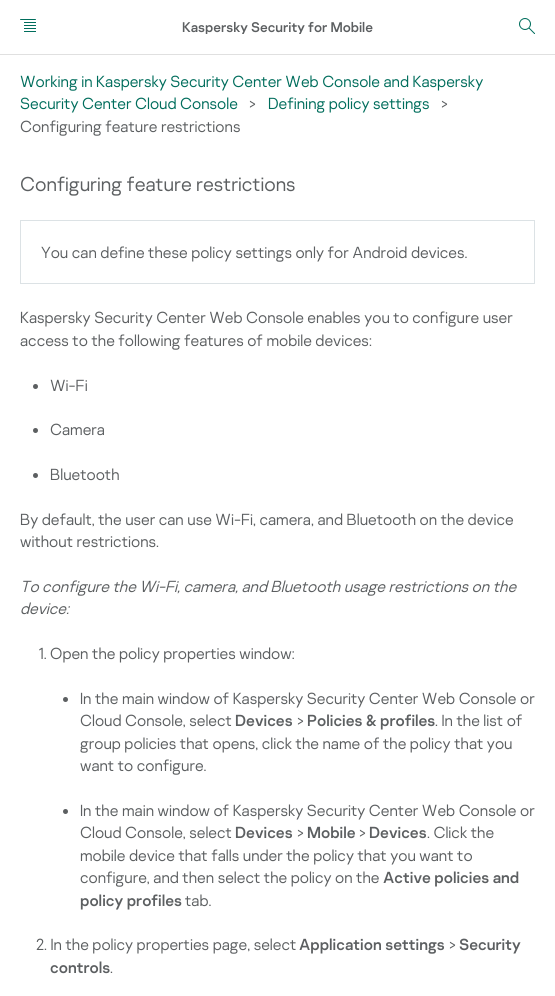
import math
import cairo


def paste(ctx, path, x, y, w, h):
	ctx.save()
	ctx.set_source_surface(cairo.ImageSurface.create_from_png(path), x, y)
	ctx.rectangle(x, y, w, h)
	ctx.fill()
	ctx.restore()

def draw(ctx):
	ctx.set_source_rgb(1, 1, 1)
	ctx.paint()
	ctx.set_source_rgb(0.878, 0.878, 0.878)
	ctx.rectangle(0, 54, 555, 1)
	ctx.fill()
	paste(ctx, 'media/1.png', 20, 19, 16, 13)
	ctx.save()
	ctx.rectangle(20, 20, 515, 14)
	ctx.clip()
	ctx.select_font_face('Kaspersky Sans')
	ctx.set_font_size(14)
	ctx.set_source_rgb(0.361, 0.373, 0.38)
	ctx.move_to(182, 32)
	ctx.show_text('Kaspersky Security for Mobile')
	ctx.restore()
	paste(ctx, 'media/2.png', 519, 18, 16, 16)
	ctx.select_font_face('Kaspersky Sans Light')
	ctx.set_font_size(16)
	ctx.set_source_rgb(0, 0.427, 0.361)
	ctx.move_to(20, 87)
	ctx.show_text('Working in Kaspersky Security Center Web Console and Kaspersky')
	ctx.move_to(20, 109)
	ctx.show_text('Security Center Cloud Console')
	ctx.set_source_rgb(0.361, 0.373, 0.38)
	ctx.move_to(249, 109)
	ctx.show_text('>')
	ctx.set_source_rgb(0, 0.427, 0.361)
	ctx.move_to(268, 109)
	ctx.show_text('Defining policy settings')
	ctx.set_source_rgb(0.361, 0.373, 0.38)
	ctx.move_to(441, 109)
	ctx.show_text('>')
	ctx.move_to(20, 132)
	ctx.show_text('Configuring feature restrictions')
	ctx.set_font_size(20)
	ctx.move_to(20, 191)
	ctx.show_text('Configuring feature restrictions')
	ctx.rectangle(20.5, 220.5, 514, 63)
	ctx.set_source_rgb(0.863, 0.886, 0.898)
	ctx.set_line_width(1)
	ctx.stroke()
	ctx.set_font_size(16)
	ctx.set_source_rgb(0.361, 0.373, 0.38)
	for x, y, s in [
		(41, 258, 'You can define these policy settings only for Android devices.'),
		(20, 323, 'Kaspersky Security Center Web Console enables you to configure user'),
		(20, 346, 'access to the following features of mobile devices:'),
	]:
		ctx.move_to(x, y)
		ctx.show_text(s)
	ctx.new_path()
	ctx.arc(35.5, 386.5, 2.5, 0, 2 * math.pi)
	ctx.fill()
	ctx.move_to(50, 391)
	ctx.show_text('Wi-Fi')
	ctx.new_path()
	ctx.arc(35.5, 430.5, 2.5, 0, 2 * math.pi)
	ctx.fill()
	ctx.move_to(50, 435)
	ctx.show_text('Camera')
	ctx.new_path()
	ctx.arc(35.5, 475.5, 2.5, 0, 2 * math.pi)
	ctx.fill()
	for x, y, s in [
		(50, 480, 'Bluetooth'),
		(20, 525, 'By default, the user can use Wi-Fi, camera, and Bluetooth on the device'),
		(20, 547, 'without restrictions.'),
	]:
		ctx.move_to(x, y)
		ctx.show_text(s)
	ctx.select_font_face('Kaspersky Sans Light', cairo.FONT_SLANT_ITALIC)
	ctx.move_to(20, 592)
	ctx.show_text('To configure the Wi-Fi, camera, and Bluetooth usage restrictions on the')
	ctx.move_to(20, 614)
	ctx.show_text('device:')
	ctx.select_font_face('Kaspersky Sans Light')
	ctx.move_to(39, 659)
	ctx.show_text('1. Open the policy properties window:')
	ctx.new_path()
	ctx.arc(65.5, 699.5, 2.5, 0, 2 * math.pi)
	ctx.fill()
	ctx.move_to(80, 704)
	ctx.show_text('In the main window of Kaspersky Security Center Web Console or')
	ctx.move_to(80, 726)
	ctx.show_text('Cloud Console, select')
	ctx.select_font_face('Kaspersky Sans')
	ctx.move_to(235, 726)
	ctx.show_text('Devices')
	ctx.select_font_face('Kaspersky Sans Light')
	ctx.move_to(297, 726)
	ctx.show_text('>')
	ctx.select_font_face('Kaspersky Sans')
	ctx.move_to(307, 726)
	ctx.show_text('Policies & profiles')
	ctx.select_font_face('Kaspersky Sans Light')
	for x, y, s in [
		(435, 726, '. In the list of'),
		(80, 749, 'group policies that opens, click the name of the policy that you'),
		(80, 771, 'want to configure.'),
	]:
		ctx.move_to(x, y)
		ctx.show_text(s)
	ctx.new_path()
	ctx.arc(65.5, 811.5, 2.5, 0, 2 * math.pi)
	ctx.fill()
	ctx.move_to(80, 816)
	ctx.show_text('In the main window of Kaspersky Security Center Web Console or')
	ctx.move_to(80, 838)
	ctx.show_text('Cloud Console, select')
	ctx.select_font_face('Kaspersky Sans')
	ctx.move_to(235, 838)
	ctx.show_text('Devices')
	ctx.select_font_face('Kaspersky Sans Light')
	ctx.move_to(297, 838)
	ctx.show_text('>')
	ctx.select_font_face('Kaspersky Sans')
	ctx.move_to(307, 838)
	ctx.show_text('Mobile')
	ctx.select_font_face('Kaspersky Sans Light')
	ctx.move_to(359, 838)
	ctx.show_text('>')
	ctx.select_font_face('Kaspersky Sans')
	ctx.move_to(369, 838)
	ctx.show_text('Devices')
	ctx.select_font_face('Kaspersky Sans Light')
	for x, y, s in [
		(427, 838, '. Click the'),
		(80, 861, 'mobile device that falls under the policy that you want to'),
		(80, 883, 'configure, and then select the policy on the'),
	]:
		ctx.move_to(x, y)
		ctx.show_text(s)
	ctx.select_font_face('Kaspersky Sans')
	ctx.move_to(383, 883)
	ctx.show_text('Active policies and')
	ctx.move_to(80, 906)
	ctx.show_text('policy profiles')
	ctx.select_font_face('Kaspersky Sans Light')
	ctx.move_to(185, 906)
	ctx.show_text('tab.')
	ctx.move_to(36, 950)
	ctx.show_text('2. In the policy properties page, select')
	ctx.select_font_face('Kaspersky Sans')
	ctx.move_to(299, 950)
	ctx.show_text('Application settings')
	ctx.select_font_face('Kaspersky Sans Light')
	ctx.move_to(449, 950)
	ctx.show_text('>')
	ctx.select_font_face('Kaspersky Sans')
	ctx.move_to(459, 950)
	ctx.show_text('Security')
	ctx.move_to(50, 973)
	ctx.show_text('controls')
	ctx.select_font_face('Kaspersky Sans Light')
	ctx.move_to(110, 973)
	ctx.show_text('.')


surface = cairo.ImageSurface(cairo.FORMAT_RGB24, 555, 996)
ctx = cairo.Context(surface)
options = cairo.FontOptions()
options.set_hint_metrics(cairo.HINT_METRICS_OFF)
options.set_hint_style(cairo.HINT_STYLE_NONE)
ctx.set_font_options(options)
ctx.set_miter_limit(4)
draw(ctx)
surface.write_to_png('image.png')
